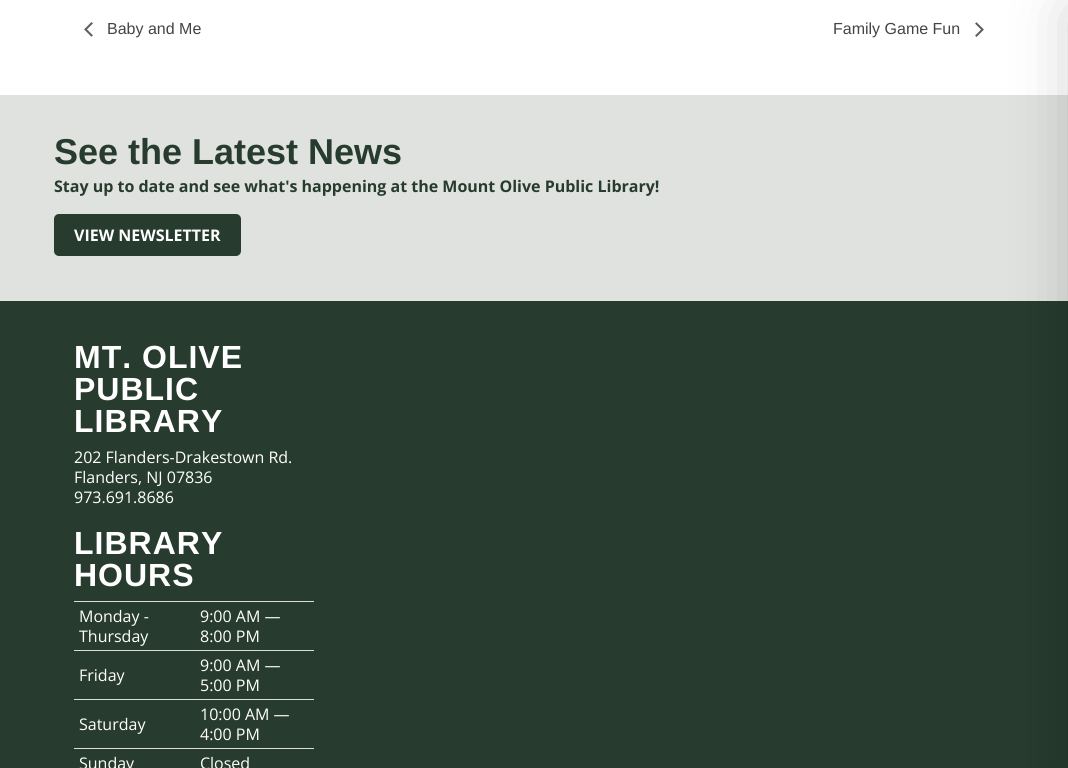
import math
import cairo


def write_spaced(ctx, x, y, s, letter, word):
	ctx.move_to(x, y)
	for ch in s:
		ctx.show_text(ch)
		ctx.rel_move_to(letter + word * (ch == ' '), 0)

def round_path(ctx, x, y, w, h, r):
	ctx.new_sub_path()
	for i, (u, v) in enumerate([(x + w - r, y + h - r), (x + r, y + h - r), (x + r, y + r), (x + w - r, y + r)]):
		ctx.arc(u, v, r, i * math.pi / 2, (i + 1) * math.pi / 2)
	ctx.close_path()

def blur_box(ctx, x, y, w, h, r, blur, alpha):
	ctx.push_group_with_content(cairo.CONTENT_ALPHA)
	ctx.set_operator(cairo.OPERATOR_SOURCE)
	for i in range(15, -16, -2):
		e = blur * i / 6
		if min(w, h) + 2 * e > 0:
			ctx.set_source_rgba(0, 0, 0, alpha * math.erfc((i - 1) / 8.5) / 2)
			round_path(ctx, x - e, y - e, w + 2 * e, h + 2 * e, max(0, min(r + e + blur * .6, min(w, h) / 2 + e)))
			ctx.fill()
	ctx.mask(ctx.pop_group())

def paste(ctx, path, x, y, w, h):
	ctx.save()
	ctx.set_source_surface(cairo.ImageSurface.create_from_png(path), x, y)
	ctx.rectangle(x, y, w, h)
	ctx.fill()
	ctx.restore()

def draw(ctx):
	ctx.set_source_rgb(1, 1, 1)
	ctx.paint()
	paste(ctx, 'media/1.png', 84, 22, 9, 15)
	ctx.select_font_face('Liberation Sans')
	ctx.set_font_size(16)
	ctx.set_source_rgb(0.267, 0.267, 0.267)
	ctx.move_to(107, 34)
	ctx.show_text('Baby and Me')
	ctx.move_to(833, 34)
	ctx.show_text('Family Game Fun')
	paste(ctx, 'media/2.png', 975, 22, 9, 15)
	ctx.set_source_rgb(0.875, 0.886, 0.875)
	ctx.rectangle(0, 95, 1068, 206)
	ctx.fill()
	ctx.select_font_face('Liberation Sans', cairo.FONT_SLANT_NORMAL, cairo.FONT_WEIGHT_BOLD)
	ctx.set_font_size(36)
	ctx.set_source_rgb(0.153, 0.231, 0.18)
	ctx.move_to(54, 164)
	ctx.show_text('See the Latest News')
	ctx.select_font_face('Open Sans', cairo.FONT_SLANT_NORMAL, cairo.FONT_WEIGHT_BOLD)
	ctx.set_font_size(16)
	ctx.move_to(54, 192)
	ctx.show_text('Stay up to date and see what\'s happening at the Mount Olive Public Library!')
	round_path(ctx, 54, 214, 187, 42, 5)
	ctx.fill()
	ctx.set_source_rgb(1, 1, 1)
	ctx.move_to(74, 241)
	ctx.show_text('VIEW NEWSLETTER')
	ctx.set_source_rgb(0.153, 0.231, 0.18)
	ctx.rectangle(0, 301, 1068, 467)
	ctx.fill()
	ctx.select_font_face('Liberation Sans', cairo.FONT_SLANT_NORMAL, cairo.FONT_WEIGHT_BOLD)
	ctx.set_font_size(32)
	ctx.set_source_rgb(1, 1, 1)
	for x, y, s in [
		(74, 368, 'MT. OLIVE'),
		(74, 400, 'PUBLIC'),
		(74, 432, 'LIBRARY'),
	]:
		write_spaced(ctx, x, y, s, 1, 0)
	ctx.select_font_face('Open Sans')
	ctx.set_font_size(16)
	for x, y, s in [
		(74, 463, '202 Flanders-Drakestown Rd.'),
		(74, 483, 'Flanders, NJ 07836'),
		(74, 503, '973.691.8686'),
	]:
		ctx.move_to(x, y)
		ctx.show_text(s)
	ctx.select_font_face('Liberation Sans', cairo.FONT_SLANT_NORMAL, cairo.FONT_WEIGHT_BOLD)
	ctx.set_font_size(32)
	write_spaced(ctx, 74, 554, 'LIBRARY', 1, 0)
	write_spaced(ctx, 74, 586, 'HOURS', 1, 0)
	ctx.select_font_face('Open Sans')
	ctx.set_font_size(16)
	ctx.move_to(79, 622)
	ctx.show_text('Monday -')
	ctx.move_to(79, 642)
	ctx.show_text('Thursday')
	ctx.set_source_rgb(0.867, 0.867, 0.867)
	ctx.rectangle(74, 601, 240, 1)
	ctx.fill()
	ctx.set_source_rgb(1, 1, 1)
	for x, y, s in [
		(200, 622, '9:00 AM —'),
		(200, 642, '8:00 PM'),
		(79, 681, 'Friday'),
	]:
		ctx.move_to(x, y)
		ctx.show_text(s)
	ctx.set_source_rgb(0.867, 0.867, 0.867)
	ctx.rectangle(74, 650, 240, 1)
	ctx.fill()
	ctx.set_source_rgb(1, 1, 1)
	for x, y, s in [
		(200, 671, '9:00 AM —'),
		(200, 691, '5:00 PM'),
		(79, 730, 'Saturday'),
	]:
		ctx.move_to(x, y)
		ctx.show_text(s)
	ctx.set_source_rgb(0.867, 0.867, 0.867)
	ctx.rectangle(74, 699, 240, 1)
	ctx.fill()
	ctx.set_source_rgb(1, 1, 1)
	for x, y, s in [
		(200, 720, '10:00 AM —'),
		(200, 740, '4:00 PM'),
		(79, 769, 'Sunday'),
	]:
		ctx.move_to(x, y)
		ctx.show_text(s)
	ctx.set_source_rgb(0.867, 0.867, 0.867)
	ctx.rectangle(74, 748, 240, 1)
	ctx.fill()
	ctx.set_source_rgb(1, 1, 1)
	ctx.move_to(200, 769)
	ctx.show_text('Closed')
	ctx.set_source_rgb(0, 0, 0)
	blur_box(ctx, 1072, 10, 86, 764, 0, 30, 0.2)


surface = cairo.ImageSurface(cairo.FORMAT_RGB24, 1068, 768)
ctx = cairo.Context(surface)
options = cairo.FontOptions()
options.set_hint_metrics(cairo.HINT_METRICS_OFF)
options.set_hint_style(cairo.HINT_STYLE_NONE)
ctx.set_font_options(options)
ctx.set_miter_limit(4)
draw(ctx)
surface.write_to_png('image.png')
